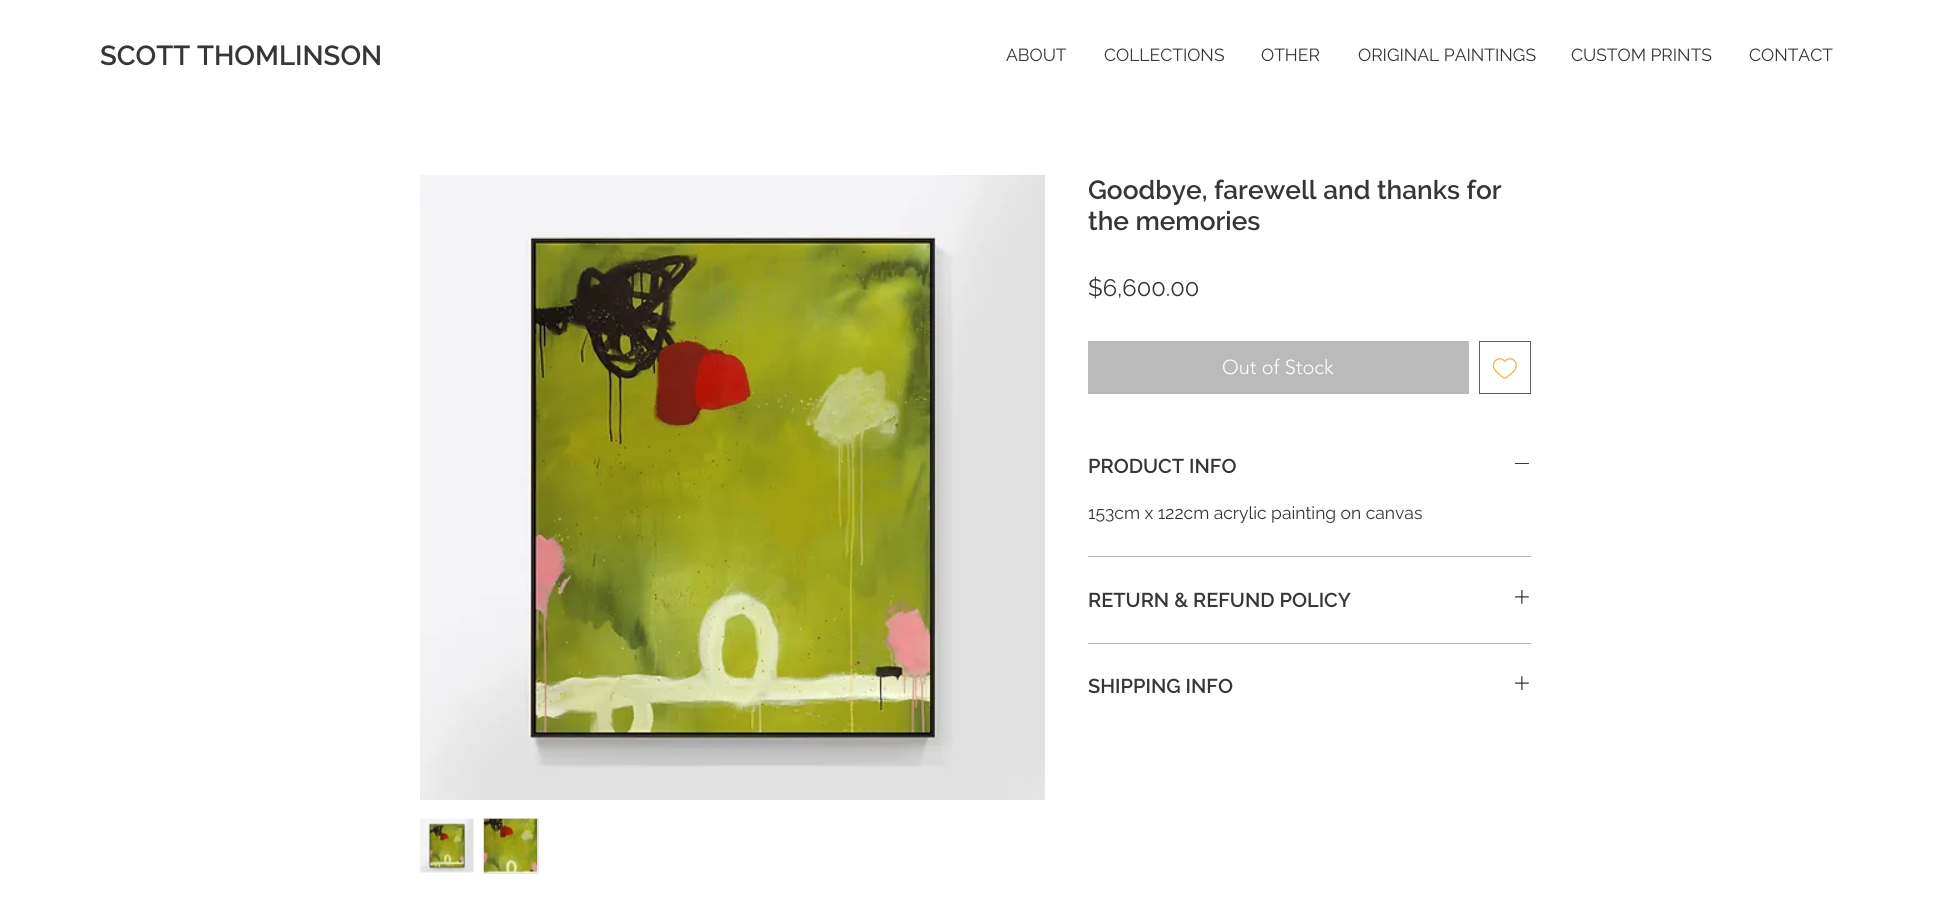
import math
import cairo


def paste(ctx, path, x, y, w, h):
	ctx.save()
	ctx.set_source_surface(cairo.ImageSurface.create_from_png(path), x, y)
	ctx.rectangle(x, y, w, h)
	ctx.fill()
	ctx.restore()

def draw(ctx):
	ctx.set_source_rgb(1, 1, 1)
	ctx.paint()
	ctx.select_font_face('Raleway SemiBold')
	ctx.set_font_size(27.5)
	ctx.set_source_rgb(0.212, 0.212, 0.212)
	ctx.move_to(100, 65)
	ctx.show_text('SCOTT THOMLINSON')
	ctx.select_font_face('Raleway')
	ctx.set_font_size(17.5)
	for x, y, s in [
		(1006, 61, 'ABOUT'),
		(1104, 61, 'COLLECTIONS'),
		(1261, 61, 'OTHER'),
		(1358, 61, 'ORIGINAL PAINTINGS'),
		(1571, 61, 'CUSTOM PRINTS'),
		(1749, 61, 'CONTACT'),
	]:
		ctx.move_to(x, y)
		ctx.show_text(s)
	paste(ctx, 'media/1.png', 420, 175, 625, 625)
	paste(ctx, 'media/2.png', 420, 818, 54, 55)
	ctx.rectangle(483.5, 818.5, 55, 55)
	ctx.set_source_rgb(0.91, 0.902, 0.902)
	ctx.set_line_width(1)
	ctx.stroke()
	paste(ctx, 'media/3.png', 483, 818, 55, 55)
	ctx.select_font_face('Raleway SemiBold')
	ctx.set_font_size(26.25)
	ctx.set_source_rgb(0.212, 0.212, 0.212)
	ctx.move_to(1088, 199)
	ctx.show_text('Goodbye, farewell and thanks for')
	ctx.move_to(1088, 230)
	ctx.show_text('the memories')
	ctx.select_font_face('Raleway')
	ctx.set_font_size(23.75)
	ctx.move_to(1088, 296)
	ctx.show_text('$6,600.00')
	ctx.set_source_rgb(0.729, 0.729, 0.729)
	ctx.rectangle(1088, 341, 381, 53)
	ctx.fill()
	ctx.select_font_face('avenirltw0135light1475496 Light')
	ctx.set_font_size(20)
	ctx.set_source_rgb(1, 1, 1)
	ctx.move_to(1222, 374)
	ctx.show_text('Out of Stock')
	ctx.rectangle(1479.5, 341.5, 51, 52)
	ctx.set_source_rgb(0.376, 0.369, 0.369)
	ctx.stroke()
	paste(ctx, 'media/4.png', 1492, 358, 25, 21)
	ctx.set_source_rgb(0.729, 0.729, 0.729)
	ctx.rectangle(1088, 556, 443, 1)
	ctx.fill()
	ctx.select_font_face('Raleway SemiBold')
	ctx.set_source_rgb(0.212, 0.212, 0.212)
	ctx.move_to(1088, 473)
	ctx.show_text('PRODUCT INFO')
	ctx.rectangle(1515, 463, 14, 1)
	ctx.fill()
	ctx.select_font_face('Raleway')
	ctx.set_font_size(17.5)
	ctx.move_to(1088, 519)
	ctx.show_text('153cm x 122cm acrylic painting on canvas')
	ctx.set_source_rgb(0.729, 0.729, 0.729)
	ctx.rectangle(1088, 643, 443, 1)
	ctx.fill()
	ctx.select_font_face('Raleway SemiBold')
	ctx.set_font_size(20)
	ctx.set_source_rgb(0.212, 0.212, 0.212)
	ctx.move_to(1088, 607)
	ctx.show_text('RETURN & REFUND POLICY')
	paste(ctx, 'media/5.png', 1515, 590, 14, 14)
	ctx.move_to(1088, 693)
	ctx.show_text('SHIPPING INFO')
	paste(ctx, 'media/6.png', 1515, 676, 14, 14)


surface = cairo.ImageSurface(cairo.FORMAT_RGB24, 1949, 919)
ctx = cairo.Context(surface)
options = cairo.FontOptions()
options.set_hint_metrics(cairo.HINT_METRICS_OFF)
options.set_hint_style(cairo.HINT_STYLE_NONE)
ctx.set_font_options(options)
ctx.set_miter_limit(4)
draw(ctx)
surface.write_to_png('image.png')
